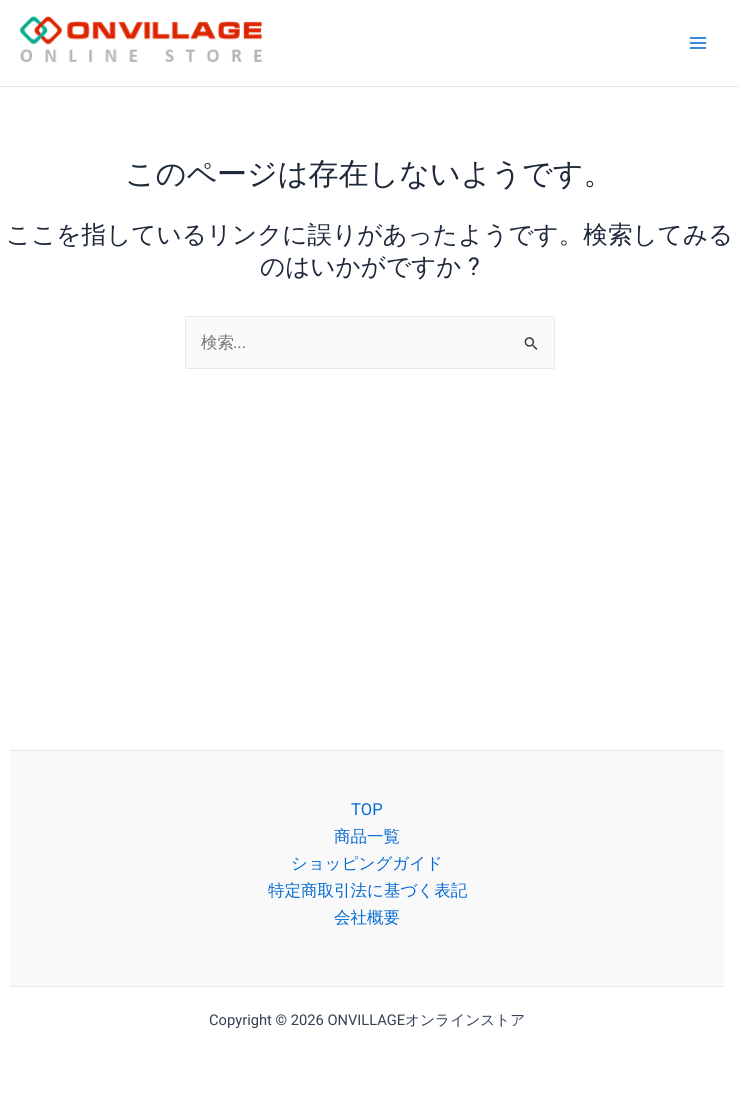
import math
import cairo


def round_path(ctx, x, y, w, h, r):
	ctx.new_sub_path()
	for i, (u, v) in enumerate([(x + w - r, y + h - r), (x + r, y + h - r), (x + r, y + r), (x + w - r, y + r)]):
		ctx.arc(u, v, r, i * math.pi / 2, (i + 1) * math.pi / 2)
	ctx.close_path()

def paste(ctx, path, x, y, w, h):
	ctx.save()
	ctx.set_source_surface(cairo.ImageSurface.create_from_png(path), x, y)
	ctx.rectangle(x, y, w, h)
	ctx.fill()
	ctx.restore()

def draw(ctx):
	ctx.set_source_rgb(1, 1, 1)
	ctx.paint()
	ctx.set_source_rgb(0.886, 0.91, 0.941)
	ctx.rectangle(0, 86, 739, 1)
	ctx.fill()
	paste(ctx, 'media/1.png', 20, 16, 242, 46)
	paste(ctx, 'media/2.png', 689, 37, 18, 12)
	ctx.select_font_face('WenQuanYi Zen Hei Medium')
	ctx.set_font_size(30)
	ctx.set_source_rgb(0.118, 0.161, 0.231)
	ctx.move_to(125, 184)
	ctx.show_text('このページは存在しないようです。')
	ctx.set_font_size(24.6)
	ctx.move_to(6, 243)
	ctx.show_text('ここを指しているリンクに誤りがあったようです。検索してみる')
	ctx.move_to(260, 275)
	ctx.show_text('のはいかがですか')
	ctx.select_font_face('Roboto')
	ctx.move_to(468, 275)
	ctx.show_text('?')
	ctx.set_source_rgb(0.98, 0.98, 0.98)
	round_path(ctx, 185.5, 316.5, 369, 52, 1.5)
	ctx.fill_preserve()
	ctx.set_source_rgb(0.886, 0.91, 0.941)
	ctx.set_line_width(1)
	ctx.stroke()
	ctx.select_font_face('WenQuanYi Zen Hei Medium')
	ctx.set_font_size(16.5)
	ctx.set_source_rgb(0.459, 0.459, 0.459)
	ctx.move_to(201, 348)
	ctx.show_text('検索')
	ctx.select_font_face('Roboto')
	ctx.move_to(233, 348)
	ctx.show_text('...')
	paste(ctx, 'media/3.png', 524, 337, 14, 13)
	ctx.set_source_rgb(0.976, 0.976, 0.976)
	ctx.rectangle(10, 751, 714, 235)
	ctx.fill()
	ctx.set_source_rgb(0.886, 0.91, 0.941)
	ctx.rectangle(10, 750, 714, 1)
	ctx.fill()
	ctx.set_source_rgb(0.016, 0.42, 0.824)
	ctx.move_to(351, 815)
	ctx.show_text('TOP')
	ctx.select_font_face('WenQuanYi Zen Hei Medium')
	for x, y, s in [
		(334, 842, '商品一覧'),
		(291, 869, 'ショッピングガイド'),
		(268, 896, '特定商取引法に基づく表記'),
		(334, 923, '会社概要'),
	]:
		ctx.move_to(x, y)
		ctx.show_text(s)
	ctx.set_source_rgb(0.886, 0.91, 0.941)
	ctx.rectangle(10, 986, 714, 1)
	ctx.fill()
	ctx.select_font_face('Roboto')
	ctx.set_font_size(14.7)
	ctx.set_source_rgb(0.2, 0.255, 0.333)
	ctx.move_to(209, 1025)
	ctx.show_text('Copyright © 2026 ONVILLAGE')
	ctx.select_font_face('WenQuanYi Zen Hei Medium')
	ctx.move_to(405, 1025)
	ctx.show_text('オンラインストア')


surface = cairo.ImageSurface(cairo.FORMAT_RGB24, 739, 1107)
ctx = cairo.Context(surface)
options = cairo.FontOptions()
options.set_hint_metrics(cairo.HINT_METRICS_OFF)
options.set_hint_style(cairo.HINT_STYLE_NONE)
ctx.set_font_options(options)
ctx.set_miter_limit(4)
draw(ctx)
surface.write_to_png('image.png')
